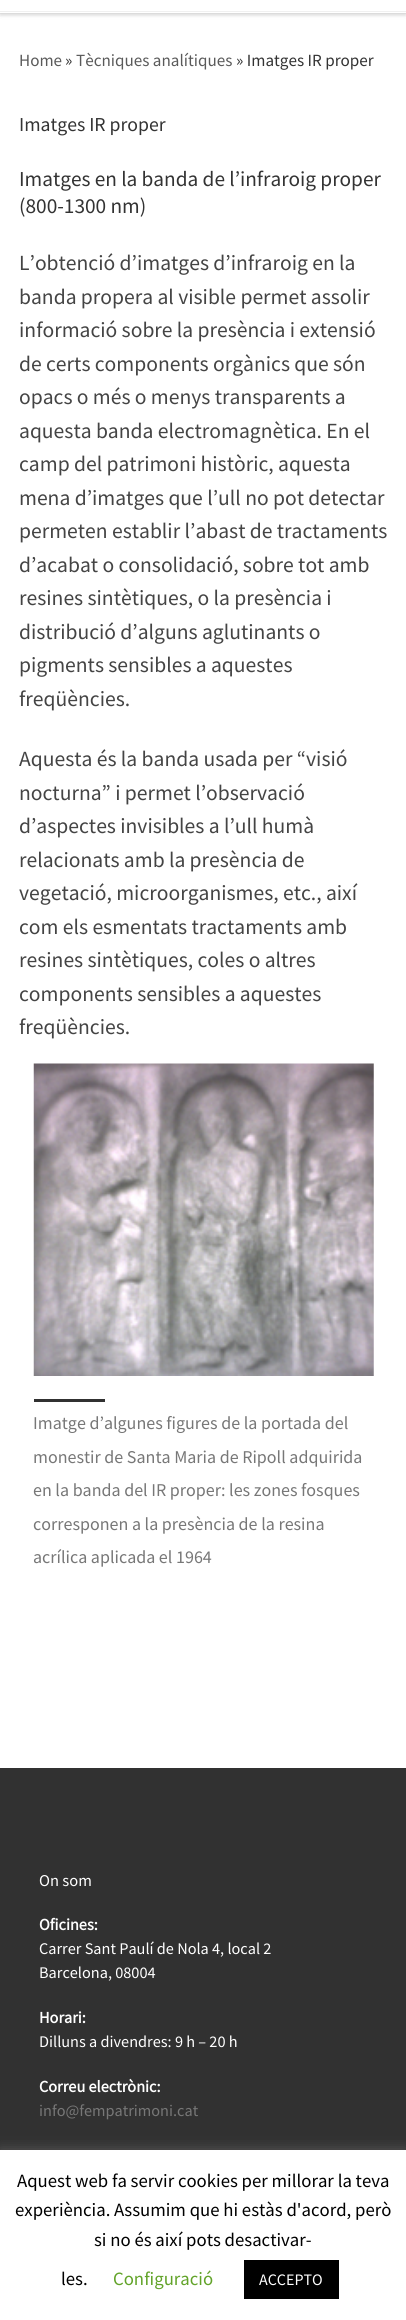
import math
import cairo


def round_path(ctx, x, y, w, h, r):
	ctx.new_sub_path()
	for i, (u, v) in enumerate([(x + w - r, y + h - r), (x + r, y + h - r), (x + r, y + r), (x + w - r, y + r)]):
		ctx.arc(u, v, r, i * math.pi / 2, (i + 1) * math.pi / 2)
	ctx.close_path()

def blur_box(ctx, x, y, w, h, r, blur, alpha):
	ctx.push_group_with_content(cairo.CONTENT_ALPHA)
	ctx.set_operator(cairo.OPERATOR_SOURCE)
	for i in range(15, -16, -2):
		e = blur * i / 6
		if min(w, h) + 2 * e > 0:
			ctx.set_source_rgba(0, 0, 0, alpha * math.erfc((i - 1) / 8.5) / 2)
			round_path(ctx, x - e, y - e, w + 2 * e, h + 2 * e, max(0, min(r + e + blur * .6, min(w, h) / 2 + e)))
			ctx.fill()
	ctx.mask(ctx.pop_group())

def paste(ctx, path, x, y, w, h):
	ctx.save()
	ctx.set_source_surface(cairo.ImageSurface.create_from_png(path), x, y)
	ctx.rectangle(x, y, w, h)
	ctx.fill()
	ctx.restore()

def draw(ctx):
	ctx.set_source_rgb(1, 1, 1)
	ctx.paint()
	ctx.set_source_rgb(0.4, 0.4, 0.4)
	blur_box(ctx, 0, -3, 406, 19, 0, 1, 0.08)
	ctx.set_source_rgb(0.925, 0.925, 0.925)
	ctx.rectangle(0, 13, 406, 1)
	ctx.fill()
	ctx.set_source_rgba(1, 1, 1, 0.15)
	ctx.rectangle(0, 13, 406, 1)
	ctx.fill()
	ctx.set_source_rgb(0, 0, 0)
	blur_box(ctx, 0, -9, 406, 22, 0, 3, 0.2)
	ctx.set_source_rgb(1, 1, 1)
	ctx.rectangle(0, 0, 406, 13)
	ctx.fill()
	ctx.set_source_rgb(0.941, 0.941, 0.941)
	ctx.rectangle(0, 11, 406, 1)
	ctx.fill()
	ctx.select_font_face('Source Sans Pro')
	ctx.set_font_size(17.1)
	ctx.set_source_rgb(0.353, 0.353, 0.353)
	ctx.move_to(19, 66)
	ctx.show_text('Home')
	ctx.set_source_rgb(0.2, 0.2, 0.2)
	ctx.move_to(65, 66)
	ctx.show_text('»')
	ctx.set_source_rgb(0.353, 0.353, 0.353)
	ctx.move_to(76, 66)
	ctx.show_text('Tècniques analítiques')
	ctx.set_source_rgb(0.2, 0.2, 0.2)
	ctx.move_to(236, 66)
	ctx.show_text('» Imatges IR proper')
	ctx.set_font_size(19.75)
	ctx.move_to(19, 131)
	ctx.show_text('Imatges IR proper')
	ctx.set_font_size(21.3)
	ctx.move_to(19, 186)
	ctx.show_text('Imatges en la banda de l’infraroig proper')
	ctx.move_to(19, 213)
	ctx.show_text('(800-1300 nm)')
	ctx.set_font_size(21.6)
	ctx.set_source_rgb(0.267, 0.267, 0.267)
	for x, y, s in [
		(19, 270, 'L’obtenció d’imatges d’infraroig en la'),
		(19, 304, 'banda propera al visible permet assolir'),
		(19, 337, 'informació sobre la presència i extensió'),
		(19, 371, 'de certs components orgànics que són'),
		(19, 404, 'opacs o més o menys transparents a'),
		(19, 438, 'aquesta banda electromagnètica. En el'),
		(19, 471, 'camp del patrimoni històric, aquesta'),
		(19, 505, 'mena d’imatges que l’ull no pot detectar'),
		(19, 538, 'permeten establir l’abast de tractaments'),
		(19, 572, 'd’acabat o consolidació, sobre tot amb'),
		(19, 605, 'resines sintètiques, o la presència i'),
		(19, 639, 'distribució d’alguns aglutinants o'),
		(19, 672, 'pigments sensibles a aquestes'),
		(19, 706, 'freqüències.'),
		(19, 766, 'Aquesta és la banda usada per “visió'),
		(19, 800, 'nocturna” i permet l’observació'),
		(19, 833, 'd’aspectes invisibles a l’ull humà'),
		(19, 867, 'relacionats amb la presència de'),
		(19, 900, 'vegetació, microorganismes, etc., així'),
		(19, 934, 'com els esmentats tractaments amb'),
		(19, 967, 'resines sintètiques, coles o altres'),
		(19, 1001, 'components sensibles a aquestes'),
		(19, 1034, 'freqüències.'),
	]:
		ctx.move_to(x, y)
		ctx.show_text(s)
	paste(ctx, 'media/1.png', 33, 1063, 341, 313)
	ctx.set_source_rgb(0.192, 0.192, 0.192)
	ctx.rectangle(34, 1399, 71, 3)
	ctx.fill()
	ctx.set_font_size(18)
	ctx.set_source_rgb(0.467, 0.467, 0.467)
	for x, y, s in [
		(33, 1429, 'Imatge d’algunes figures de la portada del'),
		(33, 1463, 'monestir de Santa Maria de Ripoll adquirida'),
		(33, 1496, 'en la banda del IR proper: les zones fosques'),
		(33, 1530, 'corresponen a la presència de la resina'),
		(33, 1563, 'acrílica aplicada el 1964'),
	]:
		ctx.move_to(x, y)
		ctx.show_text(s)
	ctx.set_source_rgb(0.192, 0.192, 0.192)
	ctx.rectangle(0, 1768, 406, 382)
	ctx.fill()
	ctx.set_font_size(16.5)
	ctx.set_source_rgb(1, 1, 1)
	ctx.move_to(39, 1886)
	ctx.show_text('On som')
	ctx.select_font_face('Source Sans Pro', cairo.FONT_SLANT_NORMAL, cairo.FONT_WEIGHT_BOLD)
	ctx.set_font_size(16.25)
	ctx.move_to(39, 1930)
	ctx.show_text('Oficines:')
	ctx.select_font_face('Source Sans Pro')
	ctx.move_to(39, 1954)
	ctx.show_text('Carrer Sant Paulí de Nola 4, local 2')
	ctx.move_to(39, 1978)
	ctx.show_text('Barcelona, 08004')
	ctx.select_font_face('Source Sans Pro', cairo.FONT_SLANT_NORMAL, cairo.FONT_WEIGHT_BOLD)
	ctx.move_to(39, 2023)
	ctx.show_text('Horari:')
	ctx.select_font_face('Source Sans Pro')
	ctx.move_to(39, 2047)
	ctx.show_text('Dilluns a divendres: 9 h – 20 h')
	ctx.select_font_face('Source Sans Pro', cairo.FONT_SLANT_NORMAL, cairo.FONT_WEIGHT_BOLD)
	ctx.move_to(39, 2092)
	ctx.show_text('Correu electrònic:')
	ctx.select_font_face('Source Sans Pro')
	ctx.set_source_rgb(0.467, 0.467, 0.467)
	ctx.move_to(39, 2116)
	ctx.show_text('info@fempatrimoni.cat')
	ctx.set_source_rgb(0.675, 0.671, 0.671)
	blur_box(ctx, 0, 2149, 406, 170, 0, 6, 0.3)
	ctx.set_source_rgb(1, 1, 1)
	ctx.rectangle(0, 2150, 406, 170)
	ctx.fill()
	ctx.set_font_size(18.75)
	ctx.set_source_rgb(0, 0, 0)
	for x, y, s in [
		(17, 2187, 'Aquest web fa servir cookies per millorar la teva'),
		(15, 2216, 'experiència. Assumim que hi estàs d\'acord, però'),
		(94, 2246, 'si no és així pots desactivar-'),
		(61, 2285, 'les.'),
	]:
		ctx.move_to(x, y)
		ctx.show_text(s)
	ctx.set_source_rgb(0.384, 0.639, 0.161)
	ctx.move_to(113, 2285)
	ctx.show_text('Configuració')
	ctx.set_source_rgb(0, 0, 0)
	ctx.rectangle(244, 2260, 95, 39)
	ctx.fill()
	ctx.set_font_size(16)
	ctx.set_source_rgb(1, 1, 1)
	ctx.move_to(259, 2285)
	ctx.show_text('ACCEPTO')


surface = cairo.ImageSurface(cairo.FORMAT_RGB24, 406, 2320)
ctx = cairo.Context(surface)
options = cairo.FontOptions()
options.set_hint_metrics(cairo.HINT_METRICS_OFF)
options.set_hint_style(cairo.HINT_STYLE_NONE)
ctx.set_font_options(options)
ctx.set_miter_limit(4)
draw(ctx)
surface.write_to_png('image.png')
